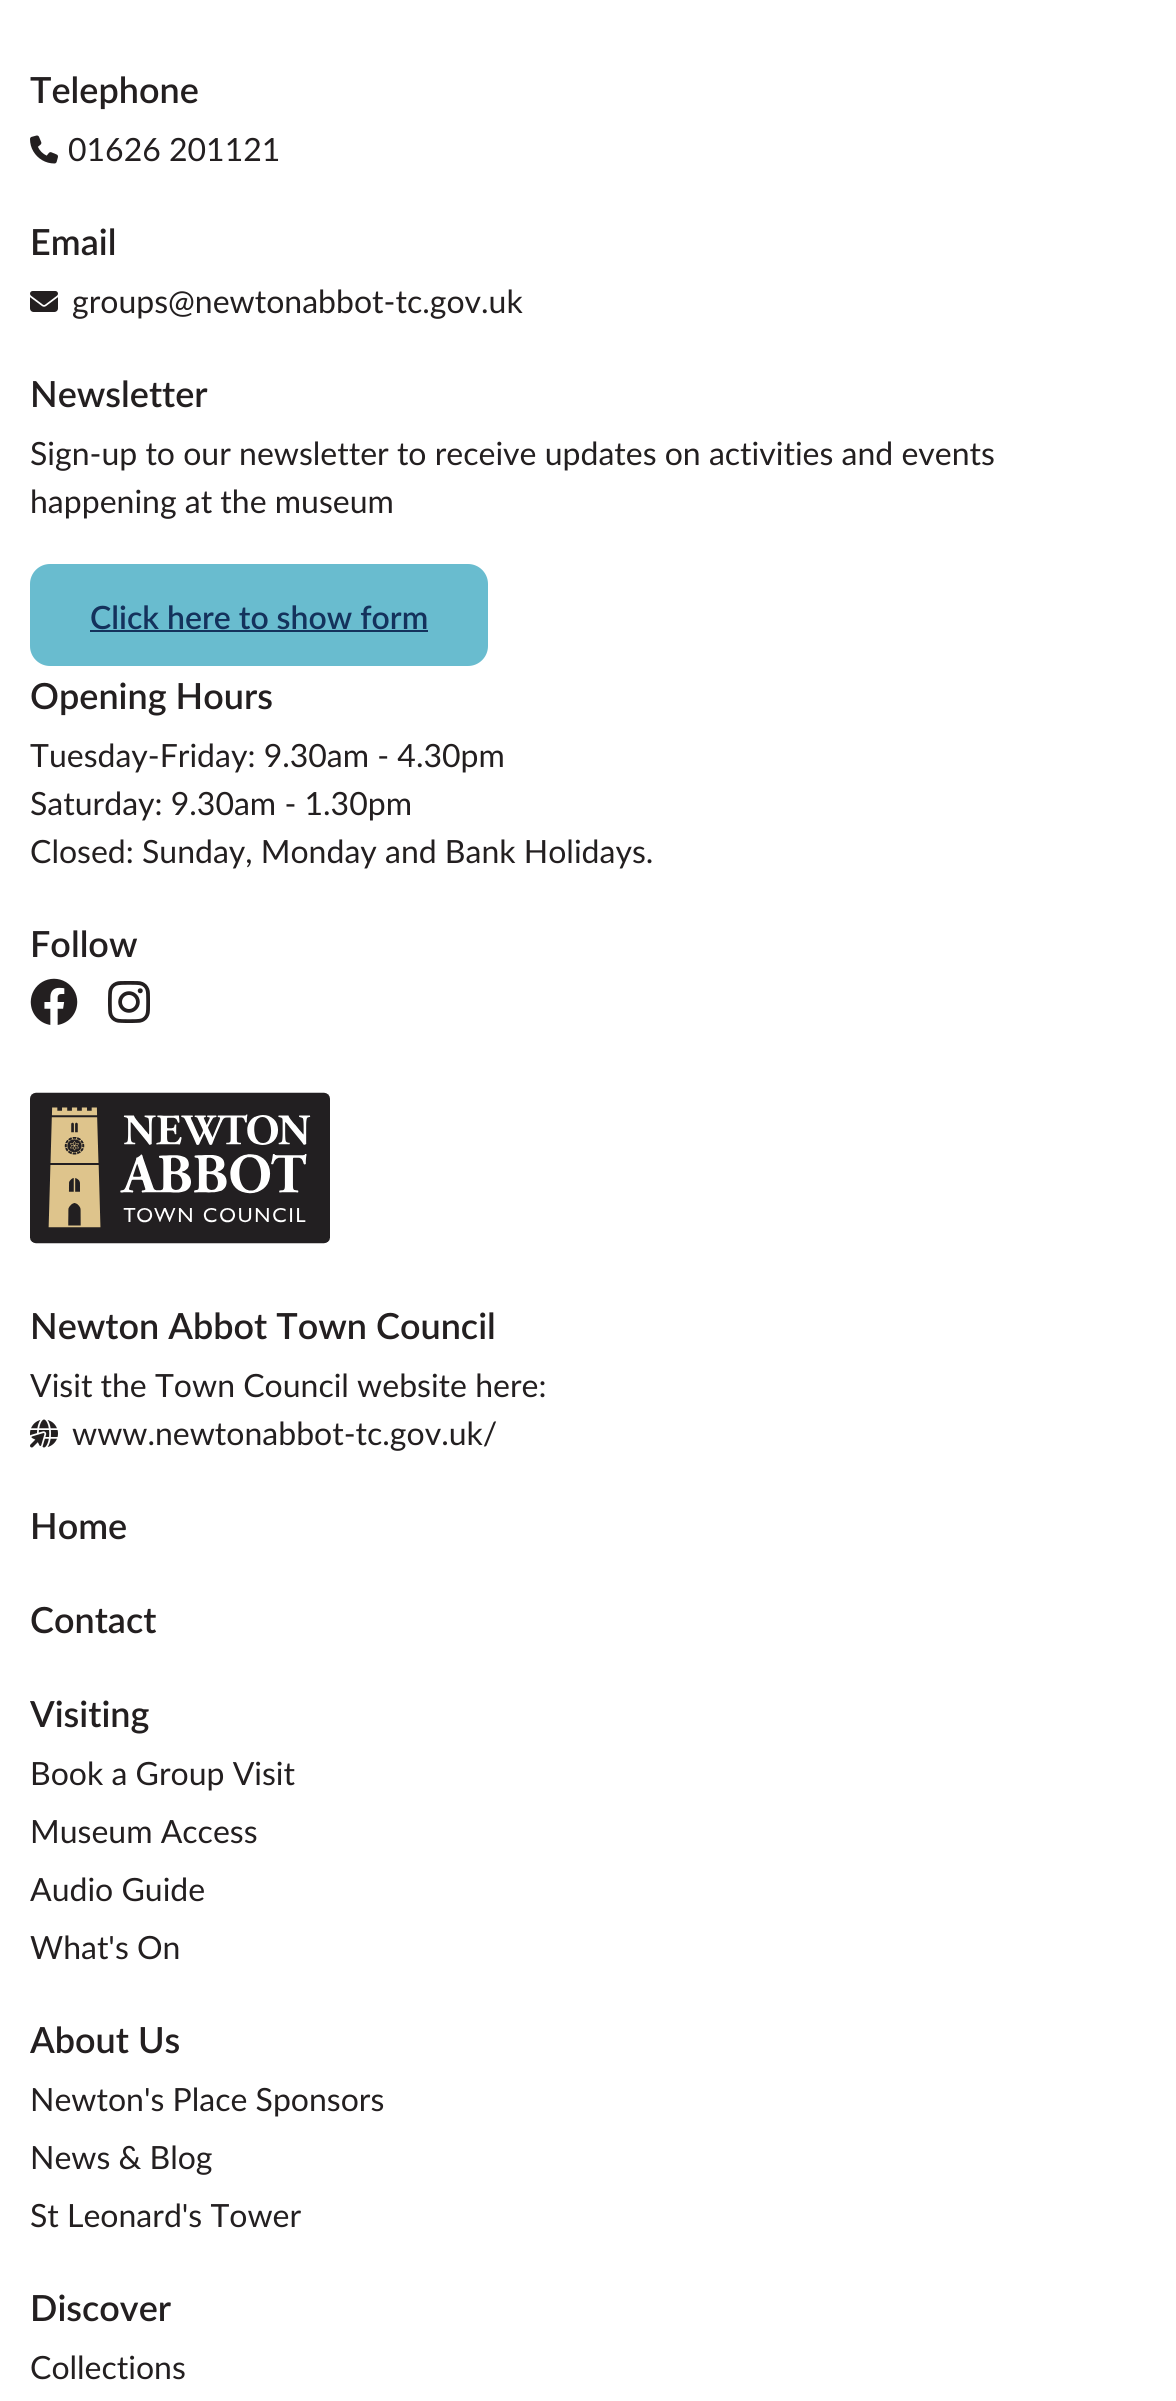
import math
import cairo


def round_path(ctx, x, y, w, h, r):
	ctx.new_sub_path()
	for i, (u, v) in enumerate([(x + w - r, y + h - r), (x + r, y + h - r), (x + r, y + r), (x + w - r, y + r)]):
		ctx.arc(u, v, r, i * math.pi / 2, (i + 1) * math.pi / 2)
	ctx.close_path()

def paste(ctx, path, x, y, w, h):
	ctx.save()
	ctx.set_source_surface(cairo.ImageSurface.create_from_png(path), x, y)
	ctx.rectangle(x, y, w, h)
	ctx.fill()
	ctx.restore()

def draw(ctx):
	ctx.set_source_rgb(1, 1, 1)
	ctx.paint()
	ctx.select_font_face('Lato SemiBold')
	ctx.set_font_size(36)
	ctx.set_source_rgb(0.137, 0.122, 0.125)
	ctx.move_to(30, 103)
	ctx.show_text('Telephone')
	paste(ctx, 'media/1.png', 30, 135, 28, 29)
	ctx.select_font_face('Lato')
	ctx.set_font_size(32)
	ctx.move_to(68, 161)
	ctx.show_text('01626 201121')
	ctx.select_font_face('Lato SemiBold')
	ctx.set_font_size(36)
	ctx.move_to(30, 255)
	ctx.show_text('Email')
	paste(ctx, 'media/2.png', 30, 291, 28, 21)
	ctx.select_font_face('Lato')
	ctx.set_font_size(32)
	ctx.move_to(72, 313)
	ctx.show_text('groups@newtonabbot-tc.gov.uk')
	ctx.select_font_face('Lato SemiBold')
	ctx.set_font_size(36)
	ctx.move_to(30, 407)
	ctx.show_text('Newsletter')
	ctx.select_font_face('Lato')
	ctx.set_font_size(32)
	ctx.move_to(30, 465)
	ctx.show_text('Sign-up to our newsletter to receive updates on activities and events')
	ctx.move_to(30, 513)
	ctx.show_text('happening at the museum')
	ctx.set_source_rgb(0.412, 0.737, 0.812)
	round_path(ctx, 30, 564, 458, 102, 20)
	ctx.fill()
	ctx.select_font_face('Lato SemiBold')
	ctx.set_source_rgb(0.082, 0.196, 0.361)
	ctx.move_to(90, 629)
	ctx.show_text('Click here to show form')
	ctx.rectangle(90, 630, 338, 2)
	ctx.fill()
	ctx.set_font_size(36)
	ctx.set_source_rgb(0.137, 0.122, 0.125)
	ctx.move_to(30, 709)
	ctx.show_text('Opening Hours')
	ctx.select_font_face('Lato')
	ctx.set_font_size(32)
	for x, y, s in [
		(30, 767, 'Tuesday-Friday: 9.30am - 4.30pm'),
		(30, 815, 'Saturday: 9.30am - 1.30pm'),
		(30, 863, 'Closed: Sunday, Monday and Bank Holidays.'),
	]:
		ctx.move_to(x, y)
		ctx.show_text(s)
	ctx.select_font_face('Lato SemiBold')
	ctx.set_font_size(36)
	ctx.move_to(30, 957)
	ctx.show_text('Follow')
	paste(ctx, 'media/3.png', 30, 978, 48, 47)
	paste(ctx, 'media/4.png', 108, 981, 42, 42)
	paste(ctx, 'media/5.png', 30, 1092, 300, 152)
	ctx.move_to(30, 1339)
	ctx.show_text('Newton Abbot Town Council')
	ctx.select_font_face('Lato')
	ctx.set_font_size(32)
	ctx.move_to(30, 1397)
	ctx.show_text('Visit the Town Council website here:')
	paste(ctx, 'media/6.png', 30, 1419, 28, 29)
	ctx.move_to(72, 1445)
	ctx.show_text('www.newtonabbot-tc.gov.uk/')
	ctx.select_font_face('Lato SemiBold')
	ctx.set_font_size(36)
	for x, y, s in [
		(30, 1539, 'Home'),
		(30, 1633, 'Contact'),
		(30, 1727, 'Visiting'),
	]:
		ctx.move_to(x, y)
		ctx.show_text(s)
	ctx.select_font_face('Lato')
	ctx.set_font_size(32)
	for x, y, s in [
		(30, 1785, 'Book a Group Visit'),
		(30, 1843, 'Museum Access'),
		(30, 1901, 'Audio Guide'),
		(30, 1959, 'What\'s On'),
	]:
		ctx.move_to(x, y)
		ctx.show_text(s)
	ctx.select_font_face('Lato SemiBold')
	ctx.set_font_size(36)
	ctx.move_to(30, 2053)
	ctx.show_text('About Us')
	ctx.select_font_face('Lato')
	ctx.set_font_size(32)
	for x, y, s in [
		(30, 2111, 'Newton\'s Place Sponsors'),
		(30, 2169, 'News & Blog'),
		(30, 2227, 'St Leonard\'s Tower'),
	]:
		ctx.move_to(x, y)
		ctx.show_text(s)
	ctx.select_font_face('Lato SemiBold')
	ctx.set_font_size(36)
	ctx.move_to(30, 2321)
	ctx.show_text('Discover')
	ctx.select_font_face('Lato')
	ctx.set_font_size(32)
	ctx.move_to(30, 2379)
	ctx.show_text('Collections')


surface = cairo.ImageSurface(cairo.FORMAT_RGB24, 1176, 2401)
ctx = cairo.Context(surface)
options = cairo.FontOptions()
options.set_hint_metrics(cairo.HINT_METRICS_OFF)
options.set_hint_style(cairo.HINT_STYLE_NONE)
ctx.set_font_options(options)
ctx.set_miter_limit(4)
draw(ctx)
surface.write_to_png('image.png')
